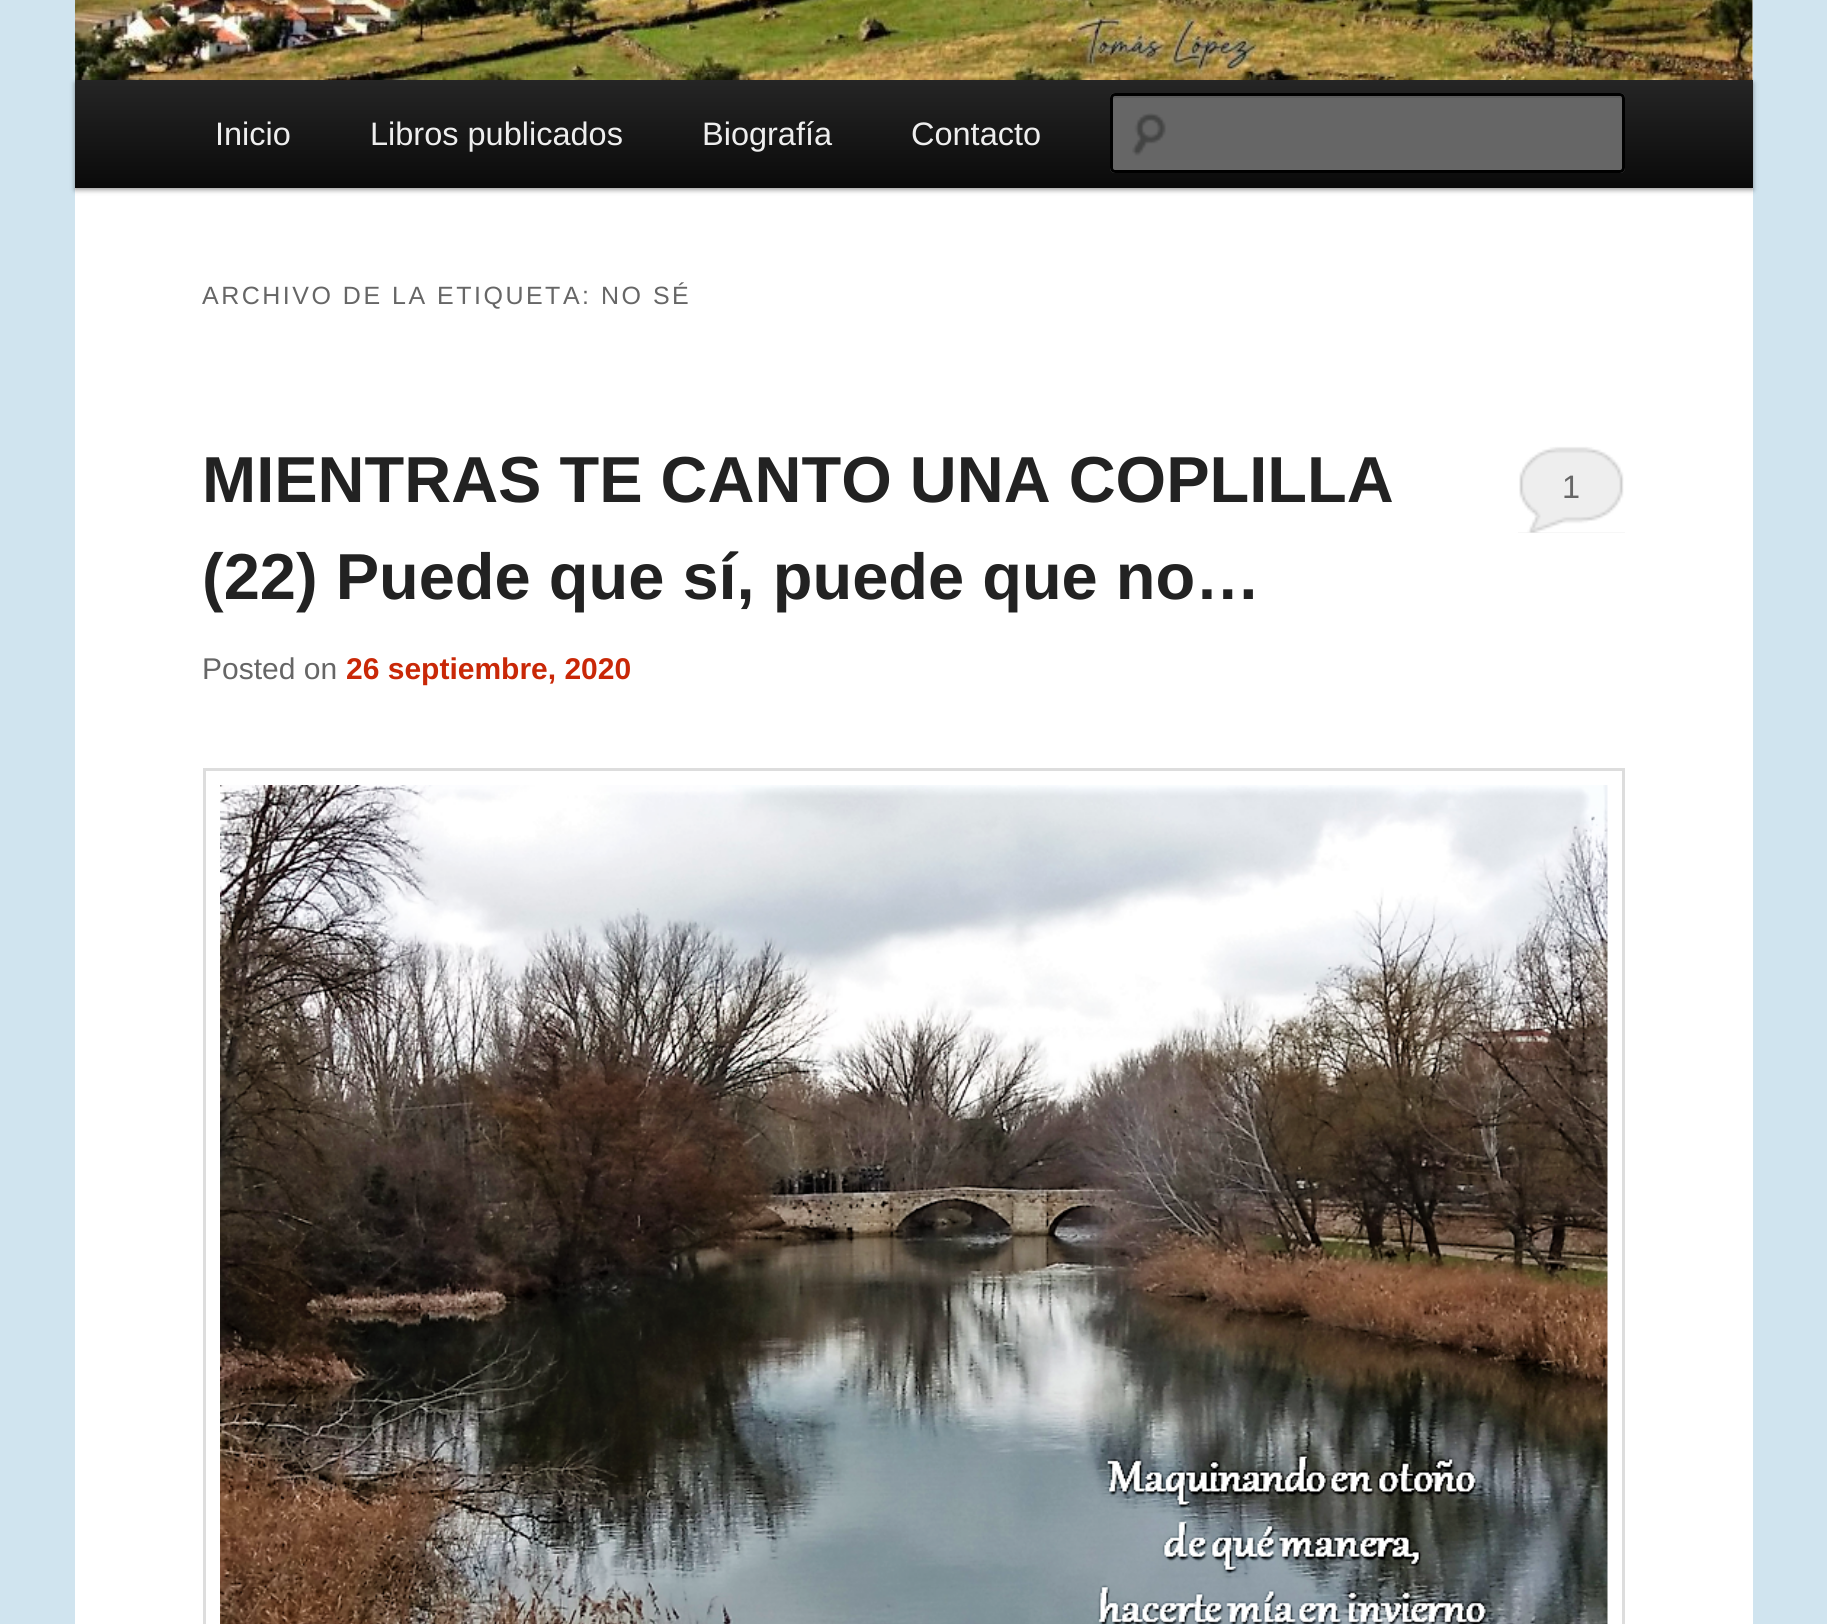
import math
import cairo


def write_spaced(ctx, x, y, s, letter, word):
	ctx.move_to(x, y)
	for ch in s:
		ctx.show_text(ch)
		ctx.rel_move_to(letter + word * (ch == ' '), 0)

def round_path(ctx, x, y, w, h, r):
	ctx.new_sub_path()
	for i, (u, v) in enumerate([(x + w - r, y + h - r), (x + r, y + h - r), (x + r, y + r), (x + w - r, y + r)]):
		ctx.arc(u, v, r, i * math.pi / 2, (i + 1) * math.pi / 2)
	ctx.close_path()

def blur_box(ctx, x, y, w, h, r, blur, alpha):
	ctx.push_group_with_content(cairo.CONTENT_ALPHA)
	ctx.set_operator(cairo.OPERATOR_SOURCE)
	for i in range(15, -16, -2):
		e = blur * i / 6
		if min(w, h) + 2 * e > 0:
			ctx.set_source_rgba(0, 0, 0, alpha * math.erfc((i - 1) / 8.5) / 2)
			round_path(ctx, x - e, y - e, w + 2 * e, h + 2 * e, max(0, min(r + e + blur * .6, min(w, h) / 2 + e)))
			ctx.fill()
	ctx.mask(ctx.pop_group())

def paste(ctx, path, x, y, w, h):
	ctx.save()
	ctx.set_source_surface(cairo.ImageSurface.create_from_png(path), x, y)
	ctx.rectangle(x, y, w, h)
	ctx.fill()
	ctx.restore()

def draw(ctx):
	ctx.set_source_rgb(0.816, 0.894, 0.937)
	ctx.paint()
	ctx.set_source_rgb(1, 1, 1)
	ctx.rectangle(75, 0, 1678, 1624)
	ctx.fill()
	ctx.set_source_rgb(0, 0, 0)
	blur_box(ctx, 75, 83, 1678, 107, 0, 2.5, 0.4)
	paste(ctx, 'media/1.png', 75, 0, 1678, 80)
	gradient = cairo.LinearGradient(914, 80, 914, 188)
	gradient.add_color_stop_rgba(0, 0.145, 0.145, 0.145, 1)
	gradient.add_color_stop_rgba(1, 0.039, 0.039, 0.039, 1)
	ctx.set_source(gradient)
	ctx.rectangle(75, 80, 1678, 108)
	ctx.fill()
	ctx.select_font_face('Liberation Sans')
	ctx.set_font_size(32.5)
	ctx.set_source_rgb(0.933, 0.933, 0.933)
	for x, y, s in [
		(215, 145, 'Inicio'),
		(370, 145, 'Libros publicados'),
		(702, 145, 'Biografía'),
		(911, 145, 'Contacto'),
	]:
		ctx.move_to(x, y)
		ctx.show_text(s)
	ctx.set_source_rgb(0.4, 0.4, 0.4)
	round_path(ctx, 1110, 93, 515, 80, 5)
	ctx.fill()
	paste(ctx, 'media/2.png', 1132, 113, 34, 43)
	ctx.set_source_rgb(0.361, 0.361, 0.361)
	ctx.new_path()
	ctx.move_to(1115, 98)
	ctx.line_to(1620, 98)
	ctx.curve_to(1621, 98, 1622, 99, 1622, 100)
	ctx.line_to(1622, 170)
	ctx.curve_to(1623, 169, 1623, 168, 1623, 168)
	ctx.line_to(1623, 98)
	ctx.curve_to(1623, 96, 1622, 95, 1620, 95)
	ctx.line_to(1116, 95)
	ctx.curve_to(1114, 95, 1113, 96, 1113, 98)
	ctx.line_to(1113, 99)
	ctx.close_path()
	ctx.fill()
	round_path(ctx, 1111.5, 94.5, 512, 77, 3.5)
	ctx.set_source_rgb(0, 0, 0)
	ctx.set_line_width(3)
	ctx.stroke()
	ctx.set_font_size(25)
	ctx.set_source_rgb(0.4, 0.4, 0.4)
	write_spaced(ctx, 202, 304, 'ARCHIVO DE LA ETIQUETA: NO SÉ', 2.5, 0)
	ctx.select_font_face('Liberation Sans', cairo.FONT_SLANT_NORMAL, cairo.FONT_WEIGHT_BOLD)
	ctx.set_font_size(65)
	ctx.set_source_rgb(0.133, 0.133, 0.133)
	ctx.move_to(202, 502)
	ctx.show_text('MIENTRAS TE CANTO UNA COPLILLA')
	ctx.move_to(202, 599)
	ctx.show_text('(22) Puede que sí, puede que no…')
	ctx.set_source_rgb(0.933, 0.933, 0.933)
	ctx.rectangle(1518, 446, 107, 87)
	ctx.fill()
	paste(ctx, 'media/3.png', 1518, 443, 107, 90)
	ctx.select_font_face('Liberation Sans')
	ctx.set_font_size(32.5)
	ctx.set_source_rgb(0.4, 0.4, 0.4)
	ctx.move_to(1562, 498)
	ctx.show_text('1')
	ctx.set_font_size(30)
	ctx.move_to(202, 679)
	ctx.show_text('Posted on')
	ctx.select_font_face('Liberation Sans', cairo.FONT_SLANT_NORMAL, cairo.FONT_WEIGHT_BOLD)
	ctx.set_source_rgb(0.788, 0.157, 0.031)
	ctx.move_to(346, 679)
	ctx.show_text('26 septiembre, 2020')
	ctx.rectangle(204.5, 769.5, 1419, 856)
	ctx.set_source_rgb(0.867, 0.867, 0.867)
	ctx.stroke()
	paste(ctx, 'media/4.png', 220, 785, 1388, 839)


surface = cairo.ImageSurface(cairo.FORMAT_RGB24, 1827, 1624)
ctx = cairo.Context(surface)
options = cairo.FontOptions()
options.set_hint_metrics(cairo.HINT_METRICS_OFF)
options.set_hint_style(cairo.HINT_STYLE_NONE)
ctx.set_font_options(options)
ctx.set_miter_limit(4)
draw(ctx)
surface.write_to_png('image.png')
